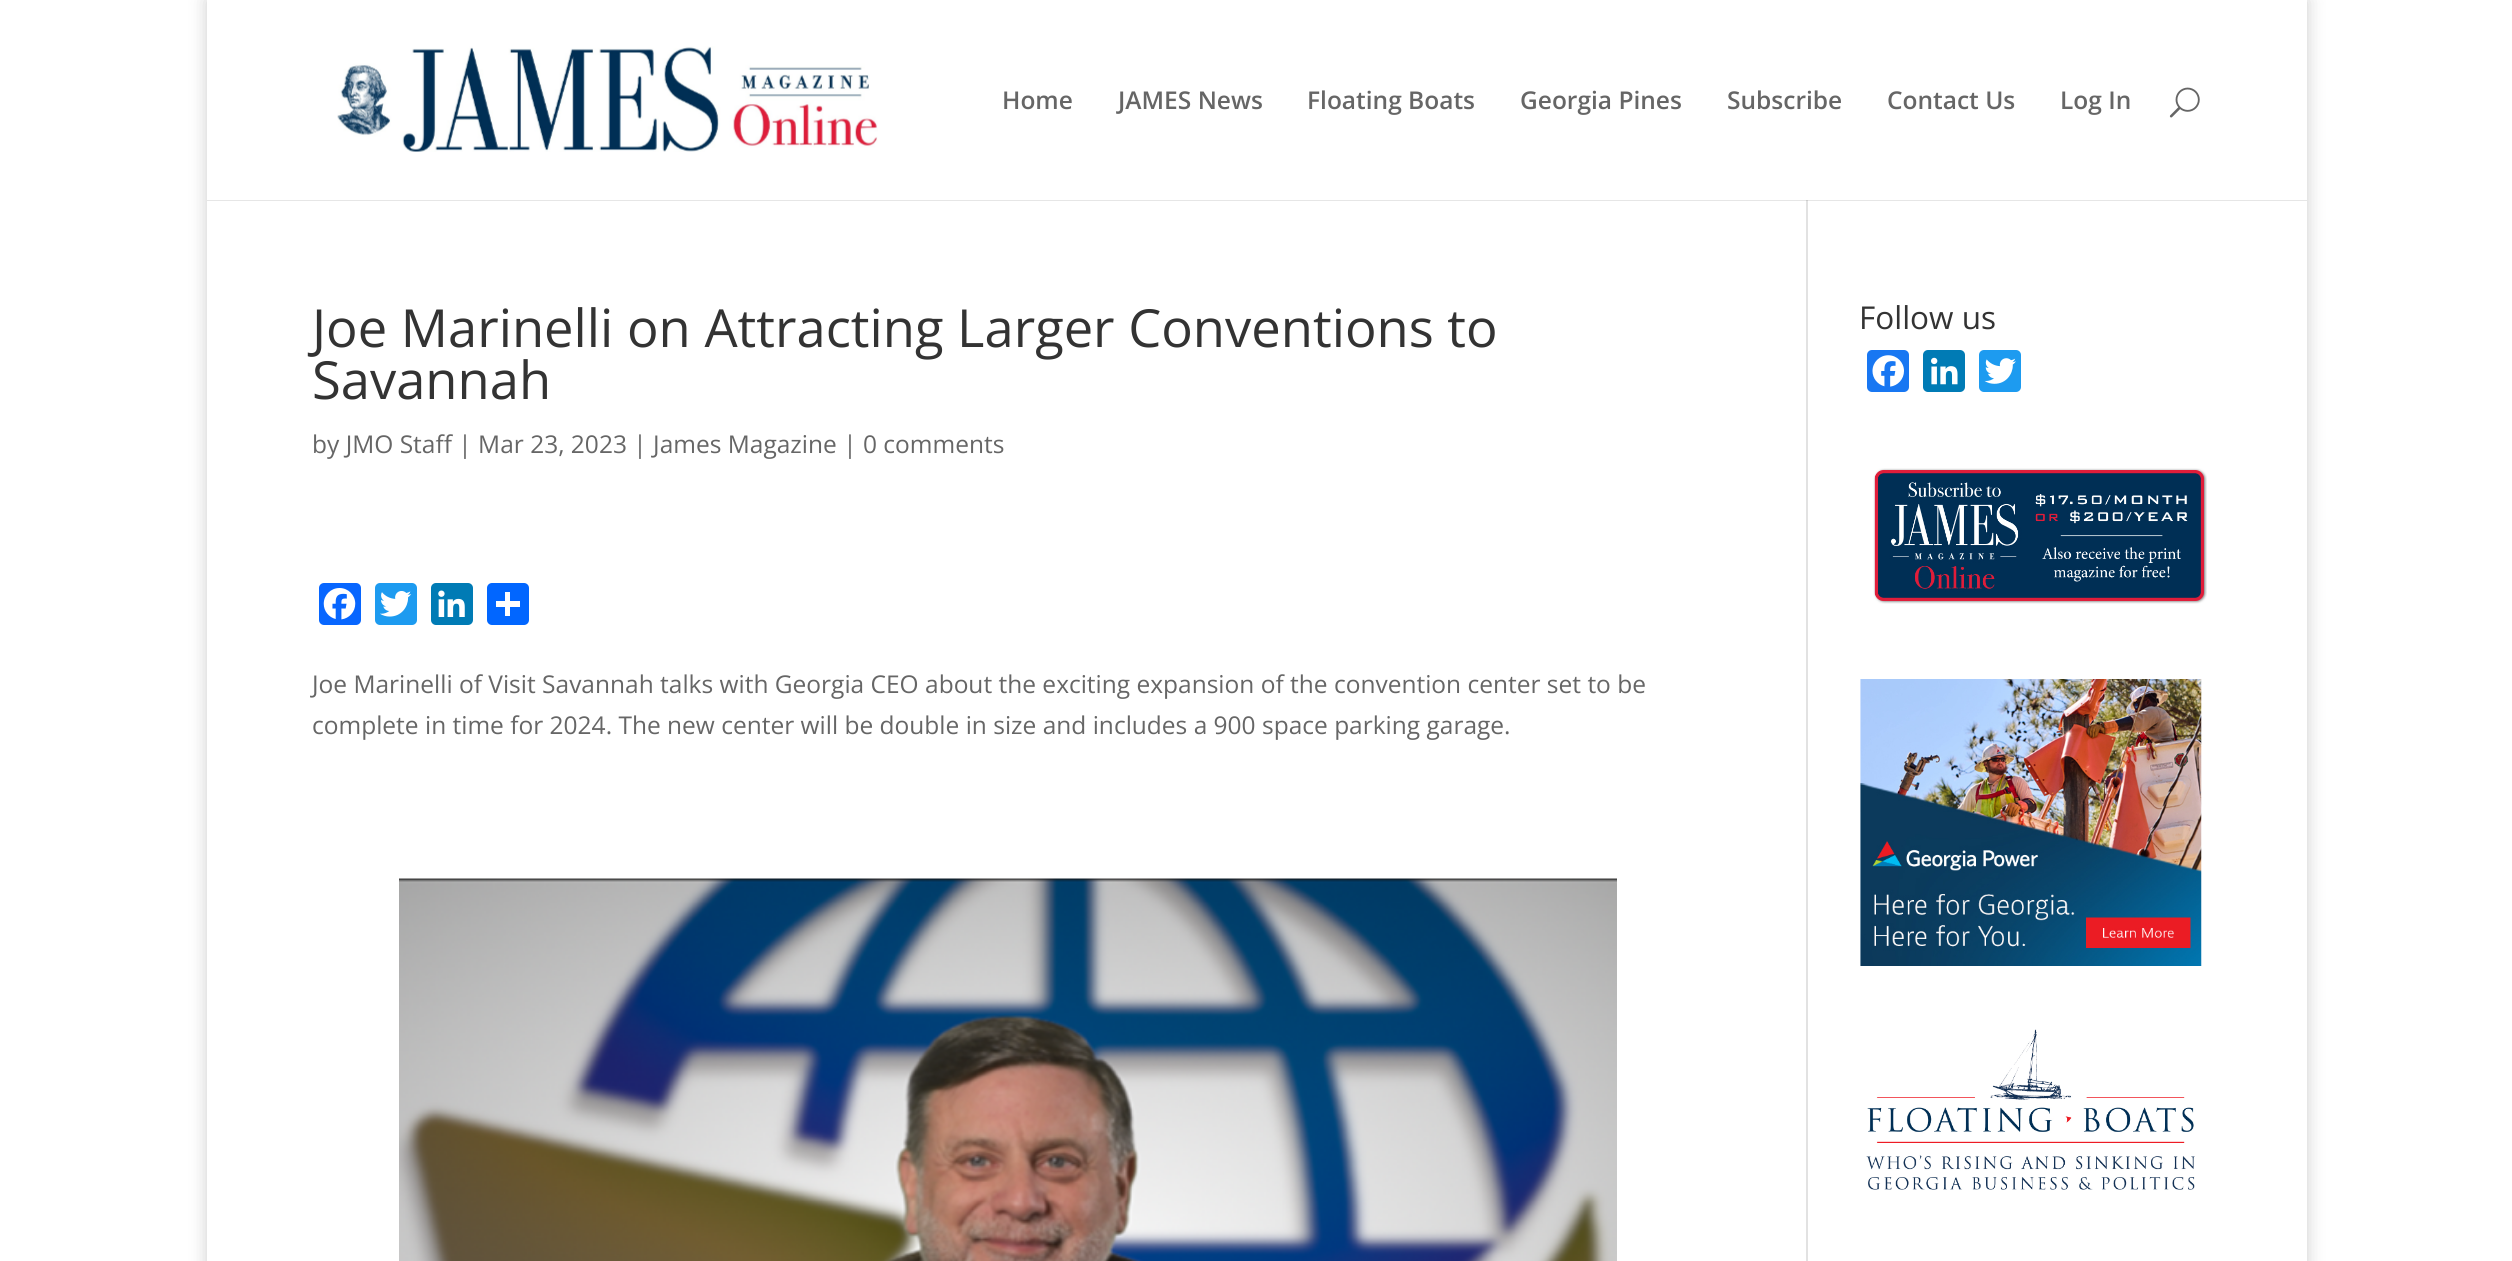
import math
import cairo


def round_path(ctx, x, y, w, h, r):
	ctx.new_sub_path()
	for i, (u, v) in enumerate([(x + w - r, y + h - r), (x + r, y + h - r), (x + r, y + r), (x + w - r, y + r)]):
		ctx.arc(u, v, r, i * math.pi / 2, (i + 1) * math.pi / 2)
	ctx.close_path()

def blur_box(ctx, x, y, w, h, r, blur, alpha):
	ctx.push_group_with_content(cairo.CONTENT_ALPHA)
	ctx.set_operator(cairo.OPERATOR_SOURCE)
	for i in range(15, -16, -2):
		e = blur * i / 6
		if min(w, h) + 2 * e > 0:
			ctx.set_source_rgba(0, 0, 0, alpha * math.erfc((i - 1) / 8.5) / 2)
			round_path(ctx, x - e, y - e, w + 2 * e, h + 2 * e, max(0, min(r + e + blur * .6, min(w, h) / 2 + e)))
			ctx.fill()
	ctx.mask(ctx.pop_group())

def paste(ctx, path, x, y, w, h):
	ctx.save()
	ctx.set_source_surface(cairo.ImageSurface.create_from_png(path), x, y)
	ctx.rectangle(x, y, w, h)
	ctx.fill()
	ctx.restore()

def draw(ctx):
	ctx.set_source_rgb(1, 1, 1)
	ctx.paint()
	ctx.set_source_rgb(0, 0, 0)
	blur_box(ctx, 207, 0, 2100, 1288, 0, 9, 0.2)
	ctx.set_source_rgb(1, 1, 1)
	ctx.rectangle(207, 200, 2100, 1061)
	ctx.fill()
	ctx.set_source_rgb(0.886, 0.886, 0.886)
	ctx.rectangle(1806, 200, 2, 1061)
	ctx.fill()
	ctx.set_source_rgba(0, 0, 0, 0.1)
	ctx.new_path()
	ctx.move_to(207, 200)
	ctx.line_to(207, 201)
	ctx.line_to(2307, 201)
	ctx.line_to(2307, 2)
	ctx.line_to(2306, 2)
	ctx.line_to(2306, 200)
	ctx.close_path()
	ctx.fill()
	ctx.set_source_rgb(1, 1, 1)
	ctx.rectangle(207, 0, 2100, 200)
	ctx.fill()
	paste(ctx, 'media/1.png', 337, 46, 541, 106)
	ctx.select_font_face('Open Sans SemiBold')
	ctx.set_font_size(24.5)
	ctx.set_source_rgb(0.4, 0.4, 0.4)
	for x, y, s in [
		(1002, 109, 'Home'),
		(1118, 109, 'JAMES News'),
		(1307, 109, 'Floating Boats'),
		(1520, 109, 'Georgia Pines'),
		(1727, 109, 'Subscribe'),
		(1887, 109, 'Contact Us'),
		(2060, 109, 'Log In'),
	]:
		ctx.move_to(x, y)
		ctx.show_text(s)
	paste(ctx, 'media/2.png', 2169, 87, 31, 31)
	ctx.select_font_face('Open Sans')
	ctx.set_font_size(52.5)
	ctx.set_source_rgb(0.2, 0.2, 0.2)
	ctx.move_to(312, 347)
	ctx.show_text('Joe Marinelli on Attracting Larger Conventions to')
	ctx.move_to(312, 399)
	ctx.show_text('Savannah')
	ctx.set_font_size(24.5)
	ctx.set_source_rgb(0.4, 0.4, 0.4)
	ctx.move_to(312, 453)
	ctx.show_text('by JMO Staff | Mar 23, 2023 | James Magazine | 0 comments')
	ctx.set_source_rgb(0.031, 0.4, 1)
	round_path(ctx, 319, 583, 42, 42, 5)
	ctx.fill()
	paste(ctx, 'media/3.png', 323, 588, 33, 32)
	ctx.set_source_rgb(0.114, 0.608, 0.941)
	round_path(ctx, 375, 583, 42, 42, 5)
	ctx.fill()
	paste(ctx, 'media/4.png', 380, 591, 32, 26)
	ctx.set_source_rgb(0, 0.482, 0.71)
	round_path(ctx, 431, 583, 42, 42, 5)
	ctx.fill()
	paste(ctx, 'media/5.png', 438, 590, 27, 27)
	ctx.set_source_rgb(0.004, 0.4, 1)
	round_path(ctx, 487, 583, 42, 42, 5)
	ctx.fill()
	ctx.set_source_rgb(1, 1, 1)
	ctx.rectangle(505, 592, 5, 24)
	ctx.fill()
	ctx.rectangle(496, 601, 24, 6)
	ctx.fill()
	ctx.set_source_rgb(0.4, 0.4, 0.4)
	ctx.move_to(312, 693)
	ctx.show_text('Joe Marinelli of Visit Savannah talks with Georgia CEO about the exciting expansion of the convention center set to be')
	ctx.move_to(312, 734)
	ctx.show_text('complete in time for 2024. The new center will be double in size and includes a 900 space parking garage.')
	paste(ctx, 'media/6.png', 399, 878, 1218, 383)
	ctx.set_font_size(31.5)
	ctx.set_source_rgb(0.2, 0.2, 0.2)
	ctx.move_to(1859, 329)
	ctx.show_text('Follow us')
	ctx.set_source_rgb(0.094, 0.467, 0.949)
	round_path(ctx, 1867, 350, 42, 42, 5)
	ctx.fill()
	paste(ctx, 'media/7.png', 1872, 355, 32, 32)
	ctx.set_source_rgb(0, 0.482, 0.71)
	round_path(ctx, 1923, 350, 42, 42, 5)
	ctx.fill()
	paste(ctx, 'media/8.png', 1931, 357, 27, 28)
	ctx.set_source_rgb(0.114, 0.608, 0.941)
	round_path(ctx, 1979, 350, 42, 42, 5)
	ctx.fill()
	paste(ctx, 'media/9.png', 1984, 358, 32, 26)
	paste(ctx, 'media/10.png', 1873, 468, 334, 136)
	paste(ctx, 'media/11.png', 1860, 679, 342, 287)
	paste(ctx, 'media/12.png', 1866, 1029, 329, 161)


surface = cairo.ImageSurface(cairo.FORMAT_RGB24, 2512, 1261)
ctx = cairo.Context(surface)
options = cairo.FontOptions()
options.set_hint_metrics(cairo.HINT_METRICS_OFF)
options.set_hint_style(cairo.HINT_STYLE_NONE)
ctx.set_font_options(options)
ctx.set_miter_limit(4)
draw(ctx)
surface.write_to_png('image.png')
